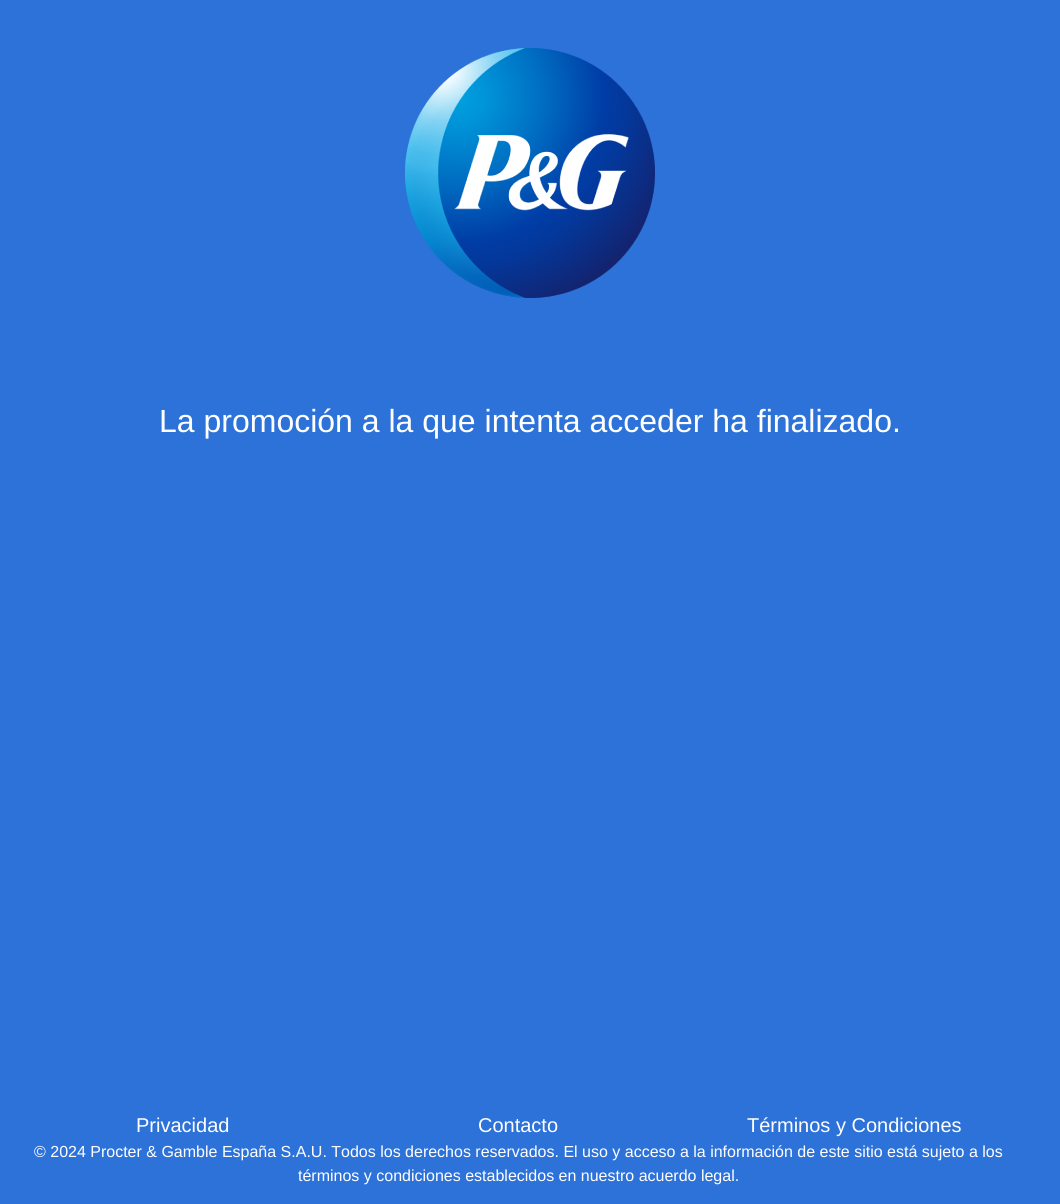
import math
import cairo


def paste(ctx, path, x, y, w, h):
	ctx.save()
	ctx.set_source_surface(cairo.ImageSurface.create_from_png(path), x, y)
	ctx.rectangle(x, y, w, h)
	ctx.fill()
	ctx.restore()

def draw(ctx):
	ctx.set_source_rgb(0.176, 0.447, 0.851)
	ctx.paint()
	paste(ctx, 'media/1.png', 405, 48, 250, 250)
	ctx.select_font_face('Liberation Sans')
	ctx.set_font_size(32)
	ctx.set_source_rgb(1, 1, 1)
	ctx.move_to(159, 432)
	ctx.show_text('La promoción a la que intenta acceder ha finalizado.')
	ctx.set_font_size(20)
	for x, y, s in [
		(136, 1132, 'Privacidad'),
		(478, 1132, 'Contacto'),
		(747, 1132, 'Términos y Condiciones'),
	]:
		ctx.move_to(x, y)
		ctx.show_text(s)
	ctx.set_font_size(16)
	ctx.move_to(34, 1157)
	ctx.show_text('© 2024 Procter & Gamble España S.A.U. Todos los derechos reservados. El uso y acceso a la información de este sitio está sujeto a los')
	ctx.move_to(298, 1181)
	ctx.show_text('términos y condiciones establecidos en nuestro acuerdo legal.')


surface = cairo.ImageSurface(cairo.FORMAT_RGB24, 1060, 1204)
ctx = cairo.Context(surface)
options = cairo.FontOptions()
options.set_hint_metrics(cairo.HINT_METRICS_OFF)
options.set_hint_style(cairo.HINT_STYLE_NONE)
ctx.set_font_options(options)
ctx.set_miter_limit(4)
draw(ctx)
surface.write_to_png('image.png')
